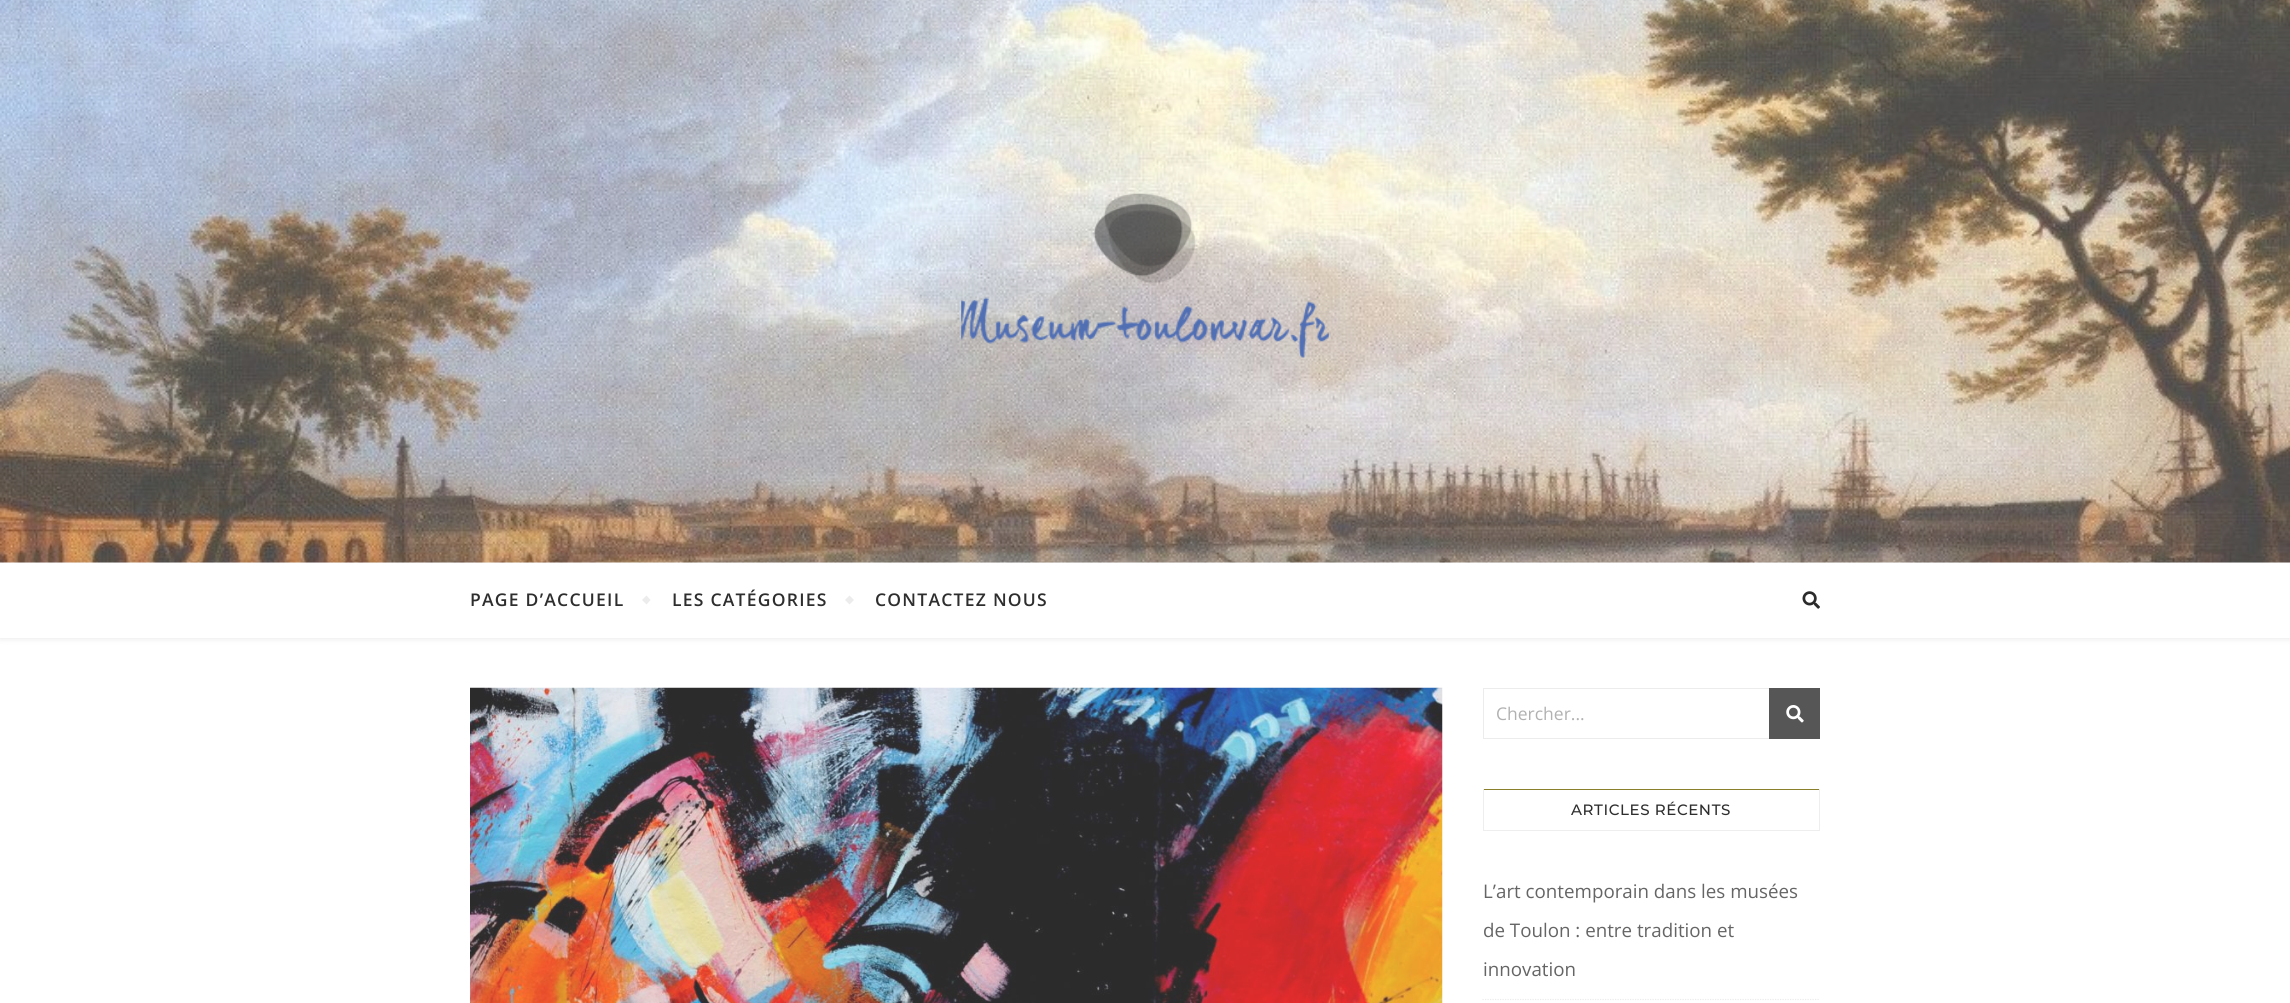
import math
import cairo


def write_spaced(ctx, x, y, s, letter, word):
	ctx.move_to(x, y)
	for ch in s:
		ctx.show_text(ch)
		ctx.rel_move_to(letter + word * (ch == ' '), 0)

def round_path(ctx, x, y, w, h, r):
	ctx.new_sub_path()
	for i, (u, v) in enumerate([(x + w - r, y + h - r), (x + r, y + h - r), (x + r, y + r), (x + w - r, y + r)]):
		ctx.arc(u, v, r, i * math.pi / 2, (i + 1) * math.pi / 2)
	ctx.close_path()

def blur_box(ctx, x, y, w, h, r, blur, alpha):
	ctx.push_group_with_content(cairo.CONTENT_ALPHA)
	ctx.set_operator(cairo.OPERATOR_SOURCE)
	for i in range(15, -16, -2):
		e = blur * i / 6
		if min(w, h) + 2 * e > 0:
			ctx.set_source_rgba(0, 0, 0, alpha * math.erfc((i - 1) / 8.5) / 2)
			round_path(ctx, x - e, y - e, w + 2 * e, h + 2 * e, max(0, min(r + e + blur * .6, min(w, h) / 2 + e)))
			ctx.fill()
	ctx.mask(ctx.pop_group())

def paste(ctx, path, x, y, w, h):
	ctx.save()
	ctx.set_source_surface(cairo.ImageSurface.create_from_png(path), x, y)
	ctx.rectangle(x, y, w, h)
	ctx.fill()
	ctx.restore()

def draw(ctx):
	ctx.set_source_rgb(1, 1, 1)
	ctx.paint()
	paste(ctx, 'media/1.png', 0, 0, 2290, 563)
	paste(ctx, 'media/2.png', 961, 193, 368, 165)
	ctx.set_source_rgb(0.169, 0.169, 0.169)
	blur_box(ctx, 0, 564, 2290, 75, 0, 3, 0.1)
	ctx.set_source_rgb(1, 1, 1)
	ctx.rectangle(0, 563, 2290, 75)
	ctx.fill()
	ctx.select_font_face('Open Sans SemiBold')
	ctx.set_font_size(17.5)
	ctx.set_source_rgb(0.18, 0.18, 0.18)
	write_spaced(ctx, 470, 606, 'PAGE D’ACCUEIL', 1.25, 0)
	ctx.set_source_rgb(0.925, 0.925, 0.925)
	ctx.new_path()
	ctx.move_to(642, 600)
	ctx.line_to(646.5, 595.5)
	ctx.line_to(650.5, 600)
	ctx.line_to(646.5, 604.5)
	ctx.close_path()
	ctx.fill()
	ctx.set_source_rgb(0.18, 0.18, 0.18)
	write_spaced(ctx, 672, 606, 'LES CATÉGORIES', 1.25, 0)
	ctx.set_source_rgb(0.925, 0.925, 0.925)
	ctx.new_path()
	ctx.move_to(845, 600)
	ctx.line_to(849.5, 595.5)
	ctx.line_to(854, 600)
	ctx.line_to(849.5, 604.5)
	ctx.close_path()
	ctx.fill()
	ctx.set_source_rgb(0.18, 0.18, 0.18)
	write_spaced(ctx, 875, 606, 'CONTACTEZ NOUS', 1.25, 0)
	paste(ctx, 'media/3.png', 1802, 591, 18, 18)
	paste(ctx, 'media/4.png', 470, 687, 973, 316)
	ctx.rectangle(1483.5, 688.5, 336, 50)
	ctx.set_source_rgb(0.925, 0.925, 0.925)
	ctx.set_line_width(1)
	ctx.stroke()
	ctx.select_font_face('Open Sans')
	ctx.set_source_rgb(0.694, 0.694, 0.694)
	ctx.move_to(1496, 720)
	ctx.show_text('Chercher...')
	ctx.set_source_rgb(0.337, 0.337, 0.337)
	ctx.rectangle(1769, 688, 51, 51)
	ctx.fill()
	paste(ctx, 'media/5.png', 1786, 705, 18, 18)
	ctx.set_source_rgb(0.541, 0.498, 0.169)
	ctx.rectangle(1483, 789, 337, 1)
	ctx.fill()
	ctx.set_source_rgb(0.933, 0.933, 0.933)
	ctx.rectangle(1819, 789, 1, 42)
	ctx.rectangle(1483, 830, 337, 1)
	ctx.rectangle(1483, 789, 1, 42)
	ctx.fill()
	ctx.select_font_face('Montserrat Medium')
	ctx.set_font_size(15)
	ctx.set_source_rgb(0.18, 0.18, 0.18)
	write_spaced(ctx, 1571, 815, 'ARTICLES RÉCENTS', 0.6, 0)
	ctx.new_path()
	ctx.move_to(1482.5, 999.5)
	ctx.line_to(1820, 999.5)
	ctx.set_source_rgb(0.925, 0.925, 0.925)
	ctx.set_line_width(1.2)
	ctx.set_dash([1.25, 1.25])
	ctx.stroke()
	ctx.select_font_face('Open Sans')
	ctx.set_font_size(18.75)
	ctx.set_source_rgb(0.396, 0.396, 0.396)
	for x, y, s in [
		(1483, 898, 'L’art contemporain dans les musées'),
		(1483, 937, 'de Toulon : entre tradition et'),
		(1483, 976, 'innovation'),
	]:
		ctx.move_to(x, y)
		ctx.show_text(s)


surface = cairo.ImageSurface(cairo.FORMAT_RGB24, 2290, 1003)
ctx = cairo.Context(surface)
options = cairo.FontOptions()
options.set_hint_metrics(cairo.HINT_METRICS_OFF)
options.set_hint_style(cairo.HINT_STYLE_NONE)
ctx.set_font_options(options)
ctx.set_miter_limit(4)
draw(ctx)
surface.write_to_png('image.png')
